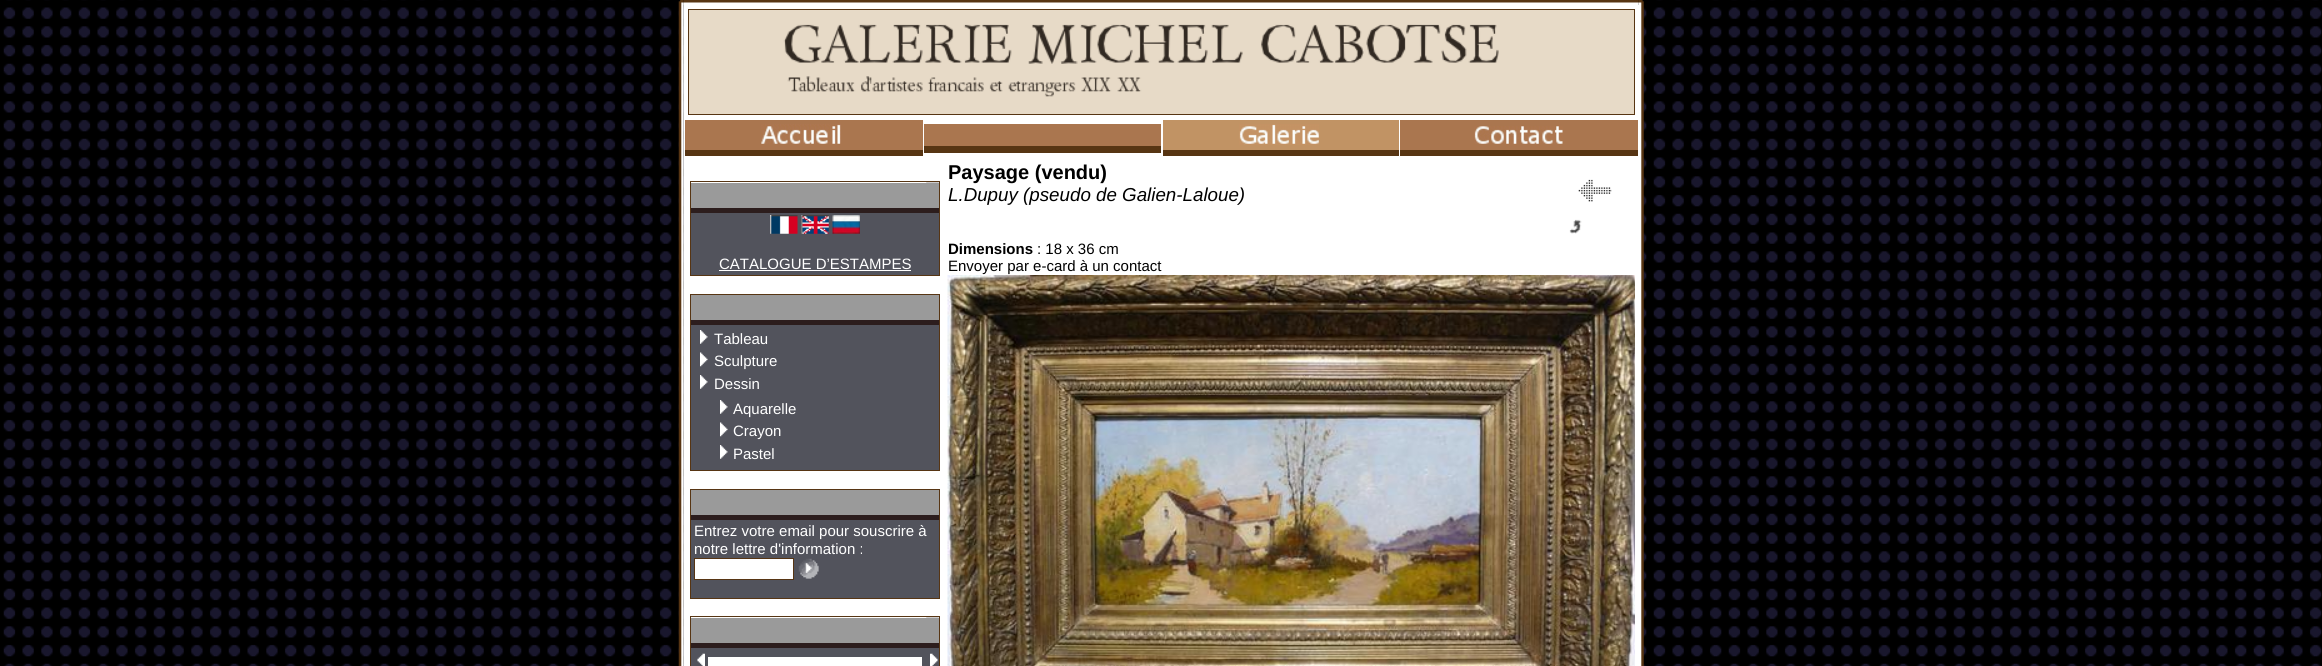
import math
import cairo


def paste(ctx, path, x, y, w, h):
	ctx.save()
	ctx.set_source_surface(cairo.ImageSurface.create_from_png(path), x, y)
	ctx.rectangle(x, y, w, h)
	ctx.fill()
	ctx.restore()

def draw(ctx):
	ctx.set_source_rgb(1, 1, 1)
	ctx.paint()
	paste(ctx, 'media/1.png', 0, 0, 2322, 666)
	paste(ctx, 'media/3.png', 683, 0, 956, 5)
	paste(ctx, 'media/2.png', 678, 0, 6, 5)
	paste(ctx, 'media/4.png', 1638, 0, 6, 5)
	paste(ctx, 'media/5.png', 678, 5, 6, 661)
	ctx.set_source_rgb(1, 1, 1)
	ctx.rectangle(684, 5, 955, 661)
	ctx.fill()
	ctx.set_source_rgb(0.906, 0.855, 0.78)
	ctx.rectangle(688.5, 9.5, 946, 105)
	ctx.fill_preserve()
	ctx.set_source_rgb(0.341, 0.208, 0.075)
	ctx.set_line_width(1)
	ctx.stroke()
	paste(ctx, 'media/6.png', 783, 24, 716, 73)
	ctx.set_source_rgb(0.667, 0.463, 0.31)
	ctx.rectangle(685, 120, 238, 30)
	ctx.fill()
	paste(ctx, 'media/7.png', 761, 124, 80, 20)
	ctx.set_source_rgb(0.341, 0.208, 0.075)
	ctx.rectangle(685, 150, 238, 6)
	ctx.fill()
	ctx.set_source_rgb(0.667, 0.463, 0.31)
	ctx.rectangle(924, 124, 237, 22)
	ctx.fill()
	ctx.set_source_rgb(0.341, 0.208, 0.075)
	ctx.rectangle(924, 146, 237, 7)
	ctx.fill()
	ctx.set_source_rgb(0.757, 0.576, 0.392)
	ctx.rectangle(1163, 120, 236, 30)
	ctx.fill()
	paste(ctx, 'media/8.png', 1239, 124, 80, 21)
	ctx.set_source_rgb(0.341, 0.208, 0.075)
	ctx.rectangle(1163, 150, 236, 6)
	ctx.fill()
	ctx.set_source_rgb(0.667, 0.463, 0.31)
	ctx.rectangle(1400, 120, 238, 30)
	ctx.fill()
	paste(ctx, 'media/9.png', 1474, 126, 89, 18)
	ctx.set_source_rgb(0.341, 0.208, 0.075)
	ctx.rectangle(1400, 150, 238, 6)
	ctx.fill()
	ctx.select_font_face('Liberation Sans', cairo.FONT_SLANT_NORMAL, cairo.FONT_WEIGHT_BOLD)
	ctx.set_font_size(20)
	ctx.set_source_rgb(0, 0, 0)
	ctx.move_to(948, 179)
	ctx.show_text('Paysage (vendu)')
	ctx.select_font_face('Liberation Sans', cairo.FONT_SLANT_ITALIC)
	ctx.set_font_size(18.75)
	ctx.move_to(948, 201)
	ctx.show_text('L.Dupuy (pseudo de Galien-Laloue)')
	paste(ctx, 'media/10.png', 1578, 179, 34, 23)
	paste(ctx, 'media/11.png', 1569, 219, 13, 15)
	ctx.select_font_face('Liberation Sans', cairo.FONT_SLANT_NORMAL, cairo.FONT_WEIGHT_BOLD)
	ctx.set_font_size(15)
	ctx.move_to(948, 254)
	ctx.show_text('Dimensions')
	ctx.select_font_face('Liberation Sans')
	ctx.move_to(1037, 254)
	ctx.show_text(': 18 x 36 cm')
	ctx.move_to(948, 271)
	ctx.show_text('Envoyer par e-card à un contact')
	paste(ctx, 'media/12.png', 947, 275, 688, 391)
	ctx.rectangle(690.5, 181.5, 249, 94)
	ctx.set_source_rgb(0.341, 0.208, 0.075)
	ctx.stroke()
	ctx.set_source_rgb(0.604, 0.604, 0.604)
	ctx.rectangle(691, 183, 248, 25)
	ctx.fill()
	paste(ctx, 'media/13.png', 926, 182, 13, 1)
	ctx.set_source_rgb(0.173, 0.114, 0.114)
	ctx.rectangle(691, 208, 248, 5)
	ctx.fill()
	ctx.set_source_rgb(0.322, 0.325, 0.361)
	ctx.rectangle(691, 213, 248, 62)
	ctx.fill()
	paste(ctx, 'media/14.png', 770, 215, 28, 19)
	paste(ctx, 'media/15.png', 801, 215, 28, 19)
	paste(ctx, 'media/16.png', 832, 215, 28, 19)
	ctx.set_source_rgb(1, 1, 1)
	ctx.move_to(719, 269)
	ctx.show_text('CATALOGUE D’ESTAMPES')
	ctx.rectangle(719, 270, 192, 1)
	ctx.fill()
	ctx.rectangle(690.5, 294.5, 249, 176)
	ctx.set_source_rgb(0.341, 0.208, 0.075)
	ctx.stroke()
	ctx.set_source_rgb(0.604, 0.604, 0.604)
	ctx.rectangle(691, 295, 248, 25)
	ctx.fill()
	ctx.set_source_rgb(0.173, 0.114, 0.114)
	ctx.rectangle(691, 320, 248, 5)
	ctx.fill()
	ctx.set_source_rgb(0.322, 0.325, 0.361)
	ctx.rectangle(691, 325, 248, 145)
	ctx.fill()
	paste(ctx, 'media/17.png', 700, 330, 8, 14)
	ctx.set_source_rgb(1, 1, 1)
	ctx.move_to(714, 344)
	ctx.show_text('Tableau')
	paste(ctx, 'media/18.png', 700, 352, 8, 15)
	ctx.move_to(714, 366)
	ctx.show_text('Sculpture')
	paste(ctx, 'media/17.png', 700, 375, 8, 14)
	ctx.move_to(714, 389)
	ctx.show_text('Dessin')
	paste(ctx, 'media/17.png', 720, 400, 8, 14)
	ctx.move_to(733, 414)
	ctx.show_text('Aquarelle')
	paste(ctx, 'media/18.png', 720, 422, 8, 15)
	ctx.move_to(733, 436)
	ctx.show_text('Crayon')
	paste(ctx, 'media/17.png', 720, 445, 8, 14)
	ctx.move_to(733, 459)
	ctx.show_text('Pastel')
	ctx.rectangle(690.5, 489.5, 249, 109)
	ctx.set_source_rgb(0.341, 0.208, 0.075)
	ctx.stroke()
	ctx.set_source_rgb(0.604, 0.604, 0.604)
	ctx.rectangle(691, 490, 248, 25)
	ctx.fill()
	ctx.set_source_rgb(0.173, 0.114, 0.114)
	ctx.rectangle(691, 515, 248, 5)
	ctx.fill()
	ctx.set_source_rgb(0.322, 0.325, 0.361)
	ctx.rectangle(691, 520, 248, 78)
	ctx.fill()
	ctx.set_source_rgb(1, 1, 1)
	ctx.move_to(694, 536)
	ctx.show_text('Entrez votre email pour souscrire à')
	ctx.move_to(694, 554)
	ctx.show_text('notre lettre d\'information :')
	ctx.rectangle(694.5, 558.5, 99, 21)
	ctx.fill_preserve()
	ctx.set_source_rgb(0.341, 0.208, 0.075)
	ctx.stroke()
	paste(ctx, 'media/19.png', 798, 558, 21, 21)
	ctx.rectangle(690.5, 616.5, 249, 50)
	ctx.stroke()
	ctx.set_source_rgb(0.604, 0.604, 0.604)
	ctx.rectangle(691, 618, 248, 25)
	ctx.fill()
	paste(ctx, 'media/13.png', 926, 617, 13, 1)
	ctx.set_source_rgb(0.173, 0.114, 0.114)
	ctx.rectangle(691, 643, 248, 5)
	ctx.fill()
	ctx.set_source_rgb(0.322, 0.325, 0.361)
	ctx.rectangle(691, 648, 248, 18)
	ctx.fill()
	paste(ctx, 'media/20.png', 697, 653, 8, 13)
	ctx.set_source_rgb(1, 1, 1)
	ctx.rectangle(708, 657, 214, 9)
	ctx.fill()
	paste(ctx, 'media/21.png', 930, 653, 8, 13)
	paste(ctx, 'media/22.png', 1639, 5, 5, 661)


surface = cairo.ImageSurface(cairo.FORMAT_RGB24, 2322, 666)
ctx = cairo.Context(surface)
options = cairo.FontOptions()
options.set_hint_metrics(cairo.HINT_METRICS_OFF)
options.set_hint_style(cairo.HINT_STYLE_NONE)
ctx.set_font_options(options)
ctx.set_miter_limit(4)
draw(ctx)
surface.write_to_png('image.png')
